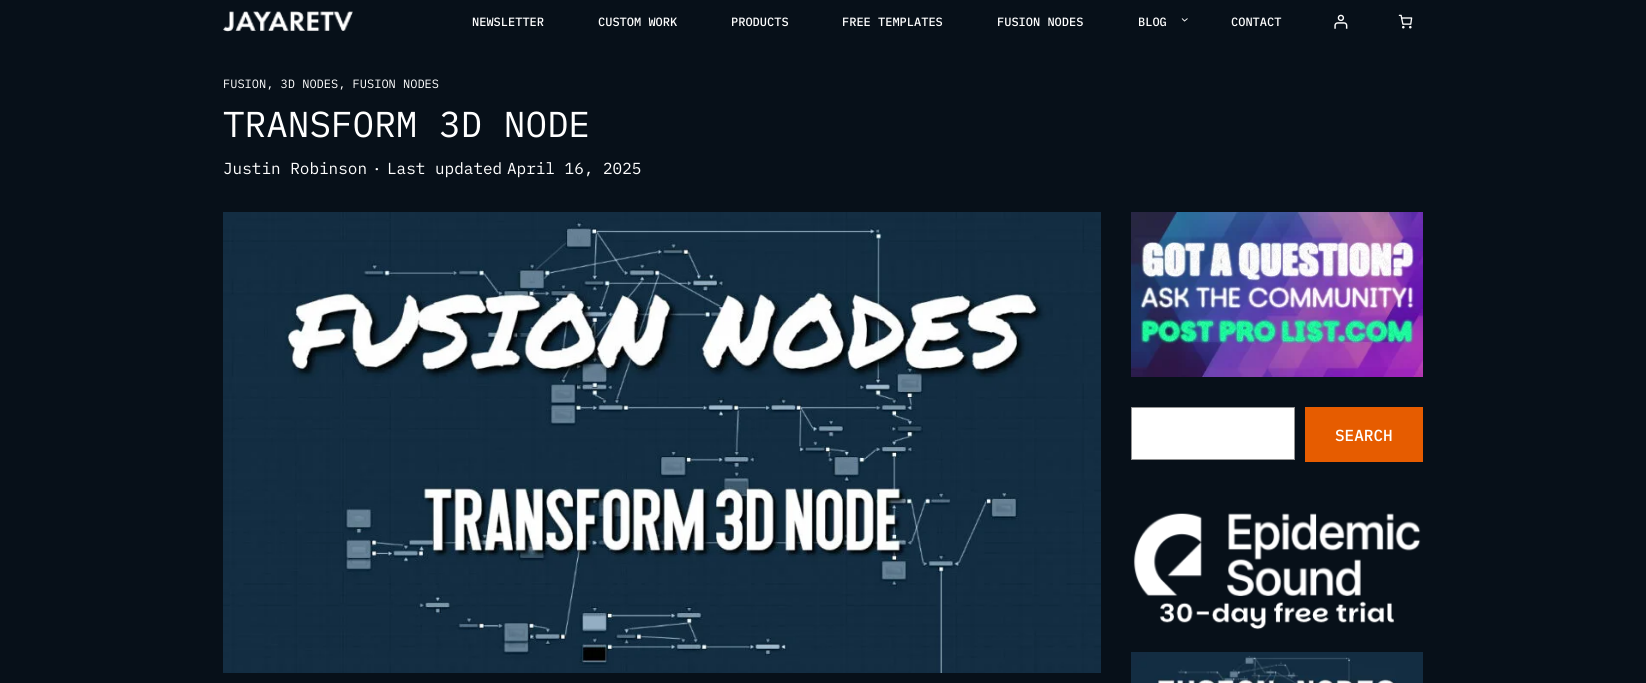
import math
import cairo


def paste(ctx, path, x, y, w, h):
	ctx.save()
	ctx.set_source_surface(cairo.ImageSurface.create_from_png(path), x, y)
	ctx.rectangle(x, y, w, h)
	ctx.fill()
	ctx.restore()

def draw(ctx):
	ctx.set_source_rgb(0.031, 0.063, 0.098)
	ctx.paint()
	paste(ctx, 'media/1.png', 223, 11, 130, 21)
	ctx.select_font_face('IBM Plex Mono Medium')
	ctx.set_font_size(12)
	ctx.set_source_rgb(1, 1, 1)
	for x, y, s in [
		(472, 26, 'NEWSLETTER'),
		(598, 26, 'CUSTOM WORK'),
		(731, 26, 'PRODUCTS'),
		(842, 26, 'FREE TEMPLATES'),
		(997, 26, 'FUSION NODES'),
		(1138, 26, 'BLOG'),
	]:
		ctx.move_to(x, y)
		ctx.show_text(s)
	ctx.new_path()
	ctx.move_to(1182, 18.5)
	ctx.line_to(1184.5, 21)
	ctx.line_to(1187.5, 18.5)
	ctx.set_line_width(0.9)
	ctx.stroke()
	ctx.move_to(1231, 26)
	ctx.show_text('CONTACT')
	paste(ctx, 'media/2.png', 1334, 14, 14, 15)
	paste(ctx, 'media/3.png', 1398, 14, 15, 15)
	ctx.select_font_face('IBM Plex Mono')
	ctx.move_to(223, 88)
	ctx.show_text('FUSION, 3D NODES, FUSION NODES')
	ctx.set_font_size(36)
	ctx.move_to(223, 137)
	ctx.show_text('TRANSFORM 3D NODE')
	ctx.set_font_size(16)
	for x, y, s in [
		(223, 174, 'Justin Robinson'),
		(372, 174, '·'),
		(387, 174, 'Last updated'),
		(507, 174, 'April 16, 2025'),
	]:
		ctx.move_to(x, y)
		ctx.show_text(s)
	paste(ctx, 'media/4.png', 223, 212, 878, 461)
	paste(ctx, 'media/5.png', 1131, 212, 292, 165)
	ctx.rectangle(1131.5, 407.5, 163, 52)
	ctx.fill_preserve()
	ctx.set_source_rgb(0.58, 0.58, 0.58)
	ctx.set_line_width(1)
	ctx.stroke()
	ctx.set_source_rgb(0.902, 0.361, 0)
	ctx.rectangle(1305, 407, 118, 55)
	ctx.fill()
	ctx.select_font_face('IBM Plex Mono Medium')
	ctx.set_source_rgb(1, 1, 1)
	ctx.move_to(1335, 441)
	ctx.show_text('SEARCH')
	paste(ctx, 'media/6.png', 1133, 513, 288, 117)
	paste(ctx, 'media/7.png', 1131, 652, 292, 31)


surface = cairo.ImageSurface(cairo.FORMAT_RGB24, 1646, 683)
ctx = cairo.Context(surface)
options = cairo.FontOptions()
options.set_hint_metrics(cairo.HINT_METRICS_OFF)
options.set_hint_style(cairo.HINT_STYLE_NONE)
ctx.set_font_options(options)
ctx.set_miter_limit(4)
draw(ctx)
surface.write_to_png('image.png')
